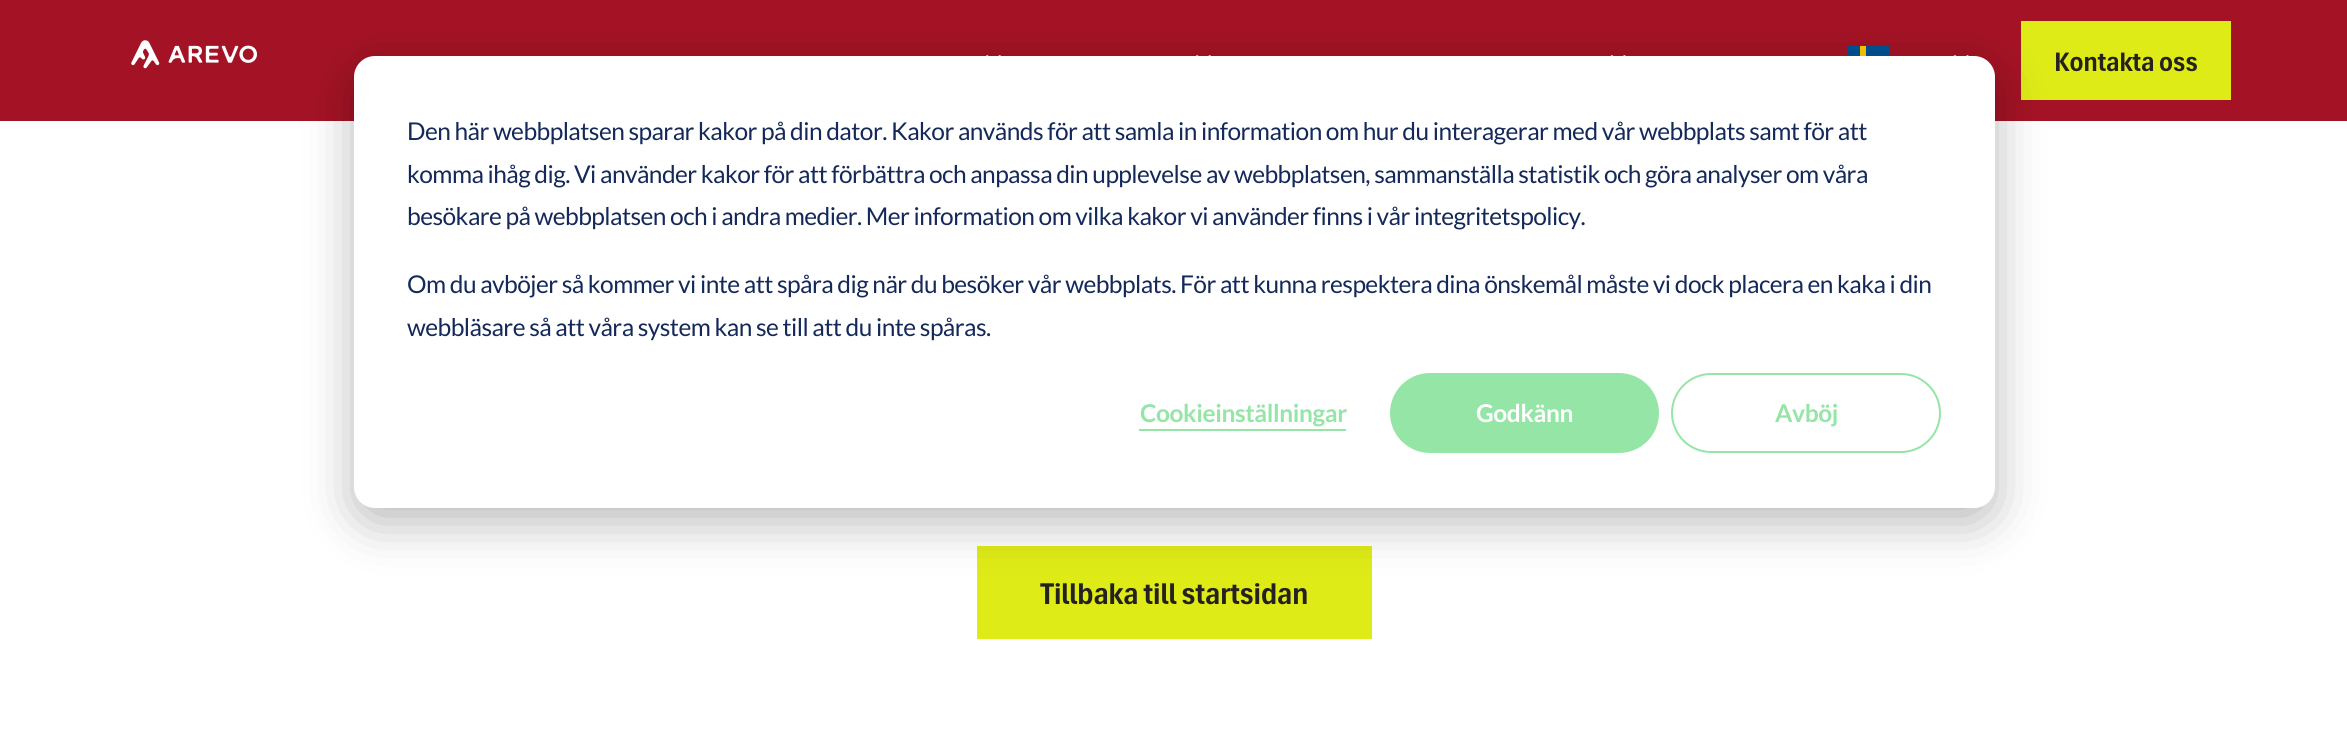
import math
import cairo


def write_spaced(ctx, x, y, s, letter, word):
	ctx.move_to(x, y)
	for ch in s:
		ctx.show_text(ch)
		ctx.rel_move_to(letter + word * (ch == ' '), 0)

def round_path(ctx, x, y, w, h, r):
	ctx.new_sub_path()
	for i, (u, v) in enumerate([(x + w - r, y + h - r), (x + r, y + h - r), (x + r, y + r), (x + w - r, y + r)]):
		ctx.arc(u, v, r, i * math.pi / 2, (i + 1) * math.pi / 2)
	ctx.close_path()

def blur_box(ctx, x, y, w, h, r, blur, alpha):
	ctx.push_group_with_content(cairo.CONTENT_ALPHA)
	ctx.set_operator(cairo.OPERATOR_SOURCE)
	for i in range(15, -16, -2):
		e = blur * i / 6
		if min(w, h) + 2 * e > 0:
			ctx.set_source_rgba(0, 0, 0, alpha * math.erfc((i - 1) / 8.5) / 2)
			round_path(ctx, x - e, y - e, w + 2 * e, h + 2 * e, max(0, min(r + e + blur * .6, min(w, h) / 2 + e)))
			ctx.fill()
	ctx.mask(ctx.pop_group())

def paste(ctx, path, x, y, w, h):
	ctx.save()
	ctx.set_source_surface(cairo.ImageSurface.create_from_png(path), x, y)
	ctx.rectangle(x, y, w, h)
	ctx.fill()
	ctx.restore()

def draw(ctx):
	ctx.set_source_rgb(1, 1, 1)
	ctx.paint()
	ctx.set_source_rgb(0.643, 0.078, 0.145)
	ctx.rectangle(0, 0, 2347, 121)
	ctx.fill()
	paste(ctx, 'media/1.png', 131, 40, 126, 29)
	paste(ctx, 'media/2.png', 986, 55, 15, 1)
	paste(ctx, 'media/2.png', 1196, 55, 15, 1)
	paste(ctx, 'media/3.png', 1610, 55, 16, 1)
	ctx.set_source_rgb(0, 0.322, 0.576)
	ctx.rectangle(1848, 46, 42, 10)
	ctx.fill()
	ctx.set_source_rgb(0.996, 0.796, 0)
	ctx.new_path()
	ctx.move_to(1860, 46)
	ctx.line_to(1860, 58)
	ctx.line_to(1848, 58)
	ctx.line_to(1848, 64)
	ctx.line_to(1860, 64)
	ctx.line_to(1860, 77)
	ctx.line_to(1866, 77)
	ctx.line_to(1866, 64)
	ctx.line_to(1890, 64)
	ctx.line_to(1890, 58)
	ctx.line_to(1866, 58)
	ctx.line_to(1866, 46)
	ctx.close_path()
	ctx.fill()
	paste(ctx, 'media/3.png', 1953, 55, 16, 1)
	ctx.set_source_rgb(0.875, 0.918, 0.09)
	ctx.rectangle(2021, 21, 210, 79)
	ctx.fill()
	ctx.select_font_face('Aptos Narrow', cairo.FONT_SLANT_NORMAL, cairo.FONT_WEIGHT_BOLD)
	ctx.set_font_size(28)
	ctx.set_source_rgb(0.141, 0.129, 0.125)
	write_spaced(ctx, 2054, 71, 'Kontakta oss', -0.5, 0)
	ctx.set_source_rgb(0.875, 0.918, 0.09)
	ctx.rectangle(977, 546, 395, 93)
	ctx.fill()
	ctx.set_source_rgb(0, 0, 0)
	blur_box(ctx, 354, 70, 1641, 452, 21, 24.5, 0.28)
	ctx.set_source_rgb(1, 1, 1)
	round_path(ctx, 354, 56, 1641, 452, 21)
	ctx.fill()
	ctx.select_font_face('Lato')
	ctx.set_font_size(24.5)
	ctx.set_source_rgb(0.082, 0.161, 0.353)
	for x, y, s in [
		(407, 140, 'Den här webbplatsen sparar kakor på din dator. Kakor används för att samla in information om hur du interagerar med vår webbplats samt för att'),
		(407, 183, 'komma ihåg dig. Vi använder kakor för att förbättra och anpassa din upplevelse av webbplatsen, sammanställa statistik och göra analyser om våra'),
		(407, 225, 'besökare på webbplatsen och i andra medier. Mer information om vilka kakor vi använder finns i vår integritetspolicy.'),
		(407, 293, 'Om du avböjer så kommer vi inte att spåra dig när du besöker vår webbplats. För att kunna respektera dina önskemål måste vi dock placera en kaka i din'),
		(407, 336, 'webbläsare så att våra system kan se till att du inte spåras.'),
	]:
		write_spaced(ctx, x, y, s, -0.55, 0)
	ctx.select_font_face('Lato', cairo.FONT_SLANT_NORMAL, cairo.FONT_WEIGHT_BOLD)
	ctx.set_source_rgb(0.584, 0.898, 0.651)
	write_spaced(ctx, 1140, 422, 'Cookieinställningar', -0.4, 0)
	ctx.rectangle(1139, 429, 207, 2)
	ctx.fill()
	round_path(ctx, 1391, 374, 267, 78, 39)
	ctx.fill_preserve()
	ctx.stroke()
	ctx.set_source_rgb(1, 1, 1)
	write_spaced(ctx, 1476, 422, 'Godkänn', -0.4, 0)
	round_path(ctx, 1672, 374, 268, 78, 39)
	ctx.set_source_rgb(0.584, 0.898, 0.651)
	ctx.stroke()
	write_spaced(ctx, 1775, 422, 'Avböj', -0.4, 0)
	ctx.select_font_face('Aptos Narrow', cairo.FONT_SLANT_NORMAL, cairo.FONT_WEIGHT_BOLD)
	ctx.set_font_size(31.5)
	ctx.set_source_rgb(0.141, 0.129, 0.125)
	write_spaced(ctx, 1040, 604, 'Tillbaka till startsidan', -0.55, 0)


surface = cairo.ImageSurface(cairo.FORMAT_RGB24, 2347, 748)
ctx = cairo.Context(surface)
options = cairo.FontOptions()
options.set_hint_metrics(cairo.HINT_METRICS_OFF)
options.set_hint_style(cairo.HINT_STYLE_NONE)
ctx.set_font_options(options)
ctx.set_miter_limit(4)
draw(ctx)
surface.write_to_png('image.png')
